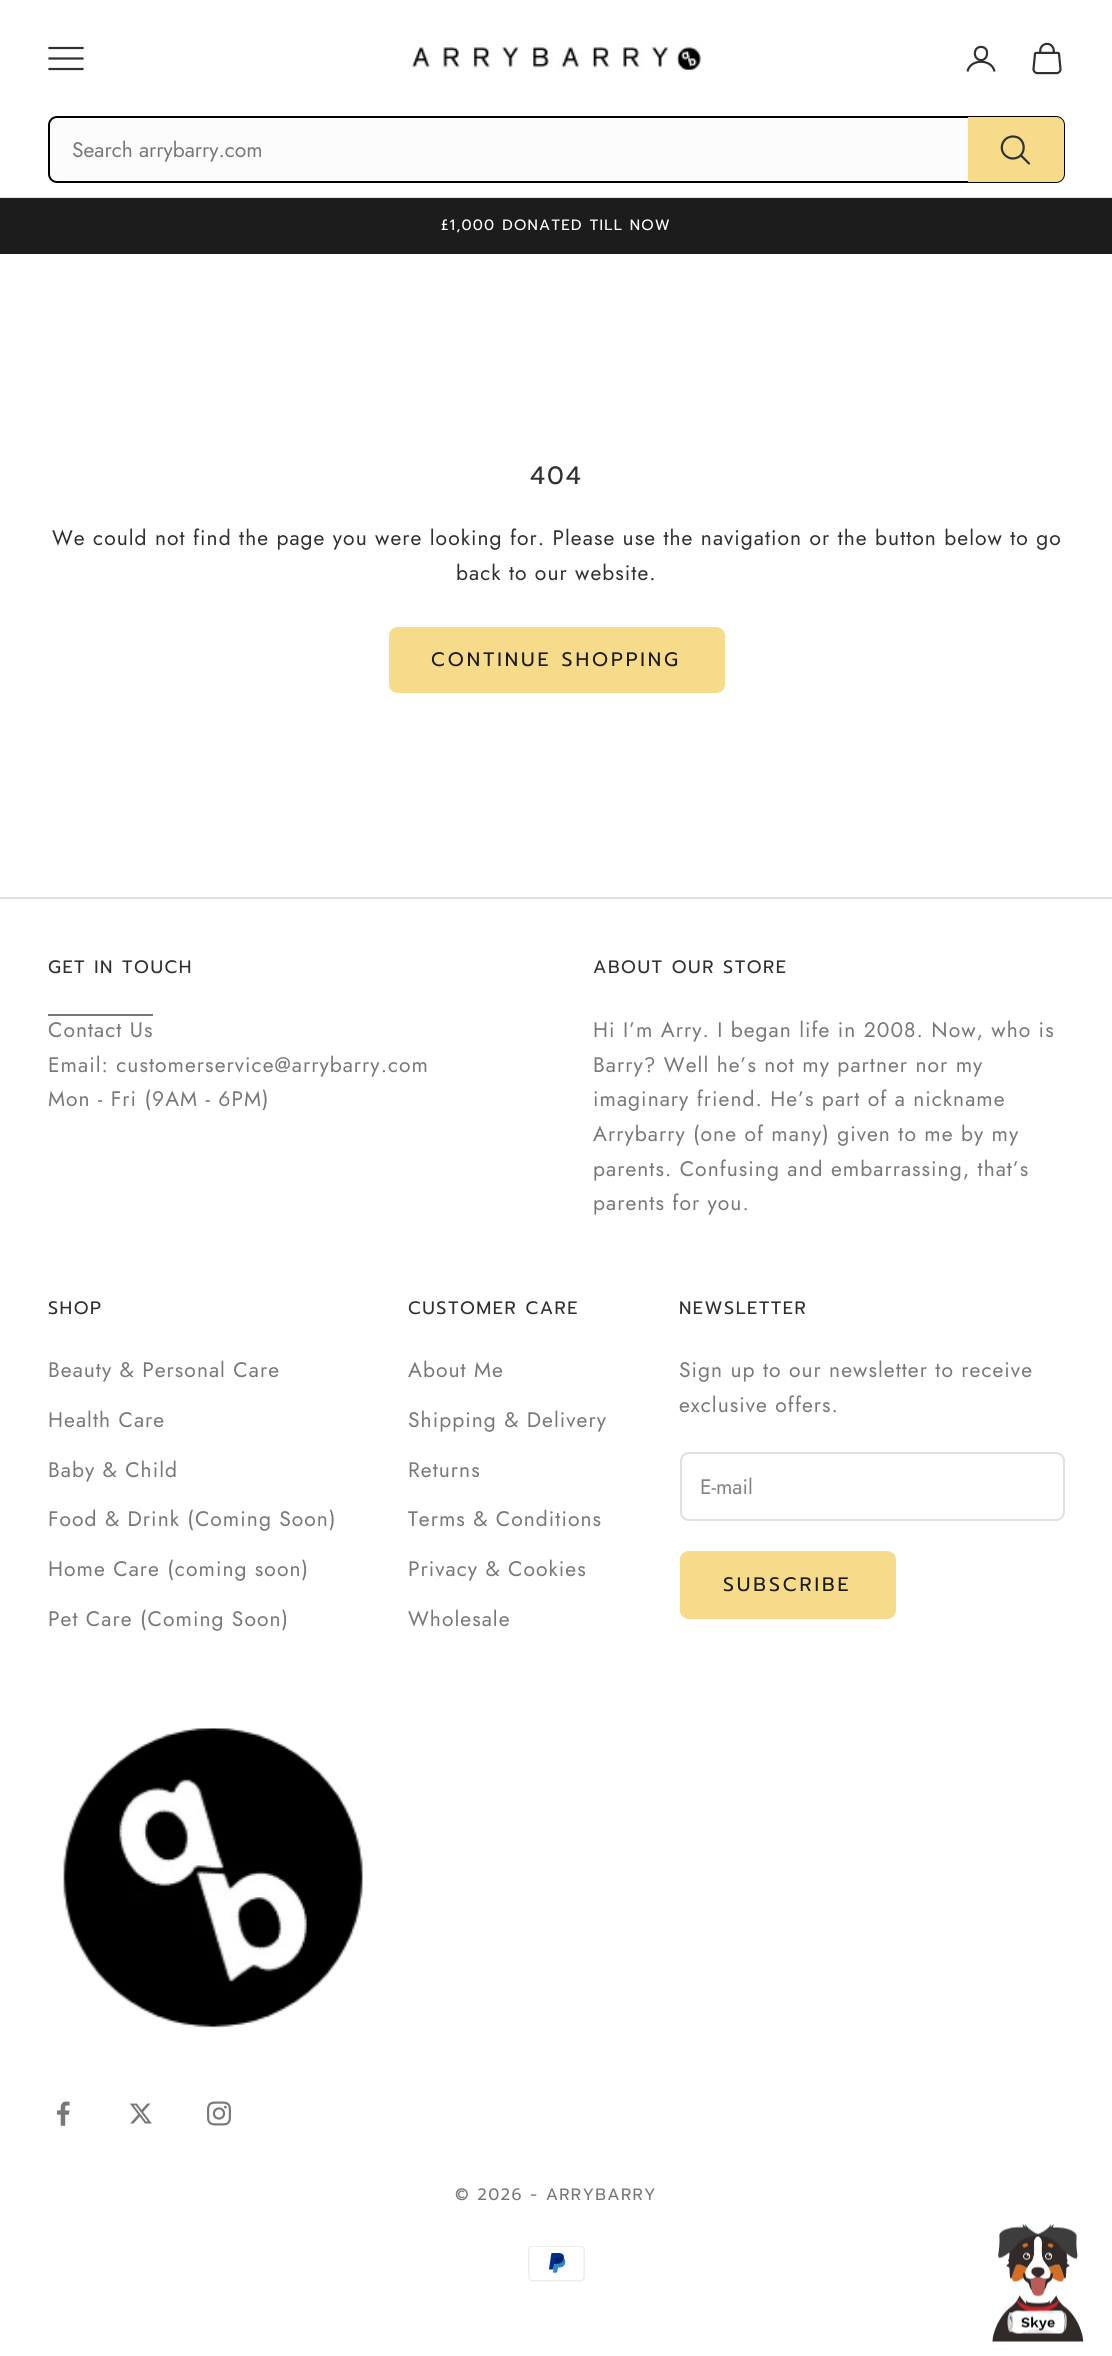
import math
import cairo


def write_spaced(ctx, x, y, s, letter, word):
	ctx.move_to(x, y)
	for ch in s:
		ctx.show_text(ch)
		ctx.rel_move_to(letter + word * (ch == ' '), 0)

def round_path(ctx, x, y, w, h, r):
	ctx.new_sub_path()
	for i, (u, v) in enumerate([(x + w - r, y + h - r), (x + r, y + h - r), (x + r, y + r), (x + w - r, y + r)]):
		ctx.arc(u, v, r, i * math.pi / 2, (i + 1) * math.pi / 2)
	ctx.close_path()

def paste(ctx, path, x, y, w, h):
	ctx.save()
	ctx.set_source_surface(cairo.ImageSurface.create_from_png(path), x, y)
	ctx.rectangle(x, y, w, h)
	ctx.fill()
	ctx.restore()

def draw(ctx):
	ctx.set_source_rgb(1, 1, 1)
	ctx.paint()
	ctx.set_source_rgb(0.878, 0.878, 0.878)
	ctx.rectangle(0, 197, 1112, 1)
	ctx.fill()
	ctx.new_path()
	ctx.move_to(49.5, 69)
	ctx.line_to(82.5, 69)
	ctx.move_to(49.5, 58.5)
	ctx.line_to(82.5, 58.5)
	ctx.move_to(49.5, 48)
	ctx.line_to(82.5, 48)
	ctx.set_source_rgb(0.188, 0.188, 0.188)
	ctx.set_line_width(2.2)
	ctx.set_line_cap(cairo.LINE_CAP_SQUARE)
	ctx.stroke()
	paste(ctx, 'media/1.png', 412, 43, 290, 28)
	ctx.new_path()
	ctx.move_to(987, 53.5)
	ctx.curve_to(986.5, 63.5, 973.5, 61.5, 975, 52)
	ctx.curve_to(976, 44.5, 988, 45.5, 987, 53.5)
	ctx.close_path()
	ctx.set_line_cap(cairo.LINE_CAP_ROUND)
	ctx.set_line_join(cairo.LINE_JOIN_ROUND)
	ctx.stroke()
	ctx.new_path()
	ctx.move_to(967.5, 71.5)
	ctx.curve_to(970, 58.5, 992, 58.5, 994.5, 71.5)
	ctx.set_line_cap(cairo.LINE_CAP_BUTT)
	ctx.set_line_join(cairo.LINE_JOIN_MITER)
	ctx.stroke()
	paste(ctx, 'media/2.png', 1032, 42, 30, 33)
	ctx.set_source_rgb(0.988, 0.988, 0.988)
	round_path(ctx, 49, 117, 1015, 65, 8)
	ctx.fill_preserve()
	ctx.set_source_rgb(0, 0, 0)
	ctx.set_line_width(2)
	ctx.stroke()
	ctx.select_font_face('Jost')
	ctx.set_font_size(21)
	ctx.set_source_rgb(0.471, 0.471, 0.471)
	ctx.move_to(72, 157)
	ctx.show_text('Search arrybarry.com')
	ctx.set_source_rgb(0.961, 0.859, 0.545)
	ctx.new_path()
	ctx.move_to(968, 117)
	ctx.line_to(1056, 117)
	ctx.curve_to(1060.5, 117, 1064, 120.5, 1064, 125)
	ctx.line_to(1064, 174)
	ctx.curve_to(1064, 178.5, 1060.5, 182, 1056, 182)
	ctx.line_to(968, 182)
	ctx.close_path()
	ctx.fill()
	ctx.new_path()
	ctx.move_to(1013, 136.5)
	ctx.curve_to(1001.5, 136.5, 997.5, 151.5, 1007.5, 157)
	ctx.curve_to(1009, 158, 1011, 158.5, 1013, 158.5)
	ctx.curve_to(1027.5, 158, 1027, 136.5, 1013, 136.5)
	ctx.close_path()
	ctx.set_source_rgb(0.188, 0.188, 0.188)
	ctx.set_line_width(2.2)
	ctx.stroke()
	ctx.new_path()
	ctx.move_to(1021.5, 156)
	ctx.line_to(1029, 163.5)
	ctx.set_line_cap(cairo.LINE_CAP_ROUND)
	ctx.stroke()
	ctx.set_source_rgb(0.11, 0.11, 0.11)
	ctx.rectangle(0, 199, 1112, 55)
	ctx.fill()
	ctx.set_source_rgb(0.122, 0.122, 0.122)
	ctx.rectangle(0, 198, 1112, 1)
	ctx.fill()
	ctx.select_font_face('Prompt')
	ctx.set_font_size(15)
	ctx.set_source_rgb(1, 1, 1)
	write_spaced(ctx, 441, 230, '£1,000 DONATED TILL NOW', 1.2, 0)
	ctx.set_font_size(25)
	ctx.set_source_rgb(0.188, 0.188, 0.188)
	write_spaced(ctx, 530, 484, '404', 2, 0)
	ctx.select_font_face('Jost')
	ctx.set_font_size(21)
	write_spaced(ctx, 52, 545, 'We could not find the page you were looking for. Please use the navigation or the button below to go', 1.05, 0)
	write_spaced(ctx, 456, 580, 'back to our website.', 1.05, 0)
	ctx.save()
	round_path(ctx, 389, 627, 336, 66, 9)
	ctx.clip()
	ctx.set_source_rgb(0.961, 0.859, 0.545)
	ctx.rectangle(389, 629, 334, 63)
	ctx.fill()
	ctx.restore()
	round_path(ctx, 390, 628, 334, 64, 8)
	ctx.set_source_rgb(0.961, 0.859, 0.545)
	ctx.set_line_width(2)
	ctx.set_line_cap(cairo.LINE_CAP_BUTT)
	ctx.stroke()
	ctx.select_font_face('Prompt')
	ctx.set_font_size(19.5)
	ctx.set_source_rgb(0.11, 0.11, 0.11)
	write_spaced(ctx, 431, 666, 'CONTINUE SHOPPING', 2.9, 0)
	ctx.set_source_rgb(0.878, 0.878, 0.878)
	ctx.rectangle(0, 897, 1112, 2)
	ctx.fill()
	ctx.set_font_size(18)
	ctx.set_source_rgb(0.188, 0.188, 0.188)
	write_spaced(ctx, 48, 973, 'GET IN TOUCH', 1.5, 0)
	ctx.select_font_face('Jost')
	ctx.set_font_size(21)
	ctx.set_source_rgb(0.471, 0.471, 0.471)
	write_spaced(ctx, 48, 1037, 'Contact Us', 1.05, 0)
	ctx.rectangle(48, 1014, 105, 2)
	ctx.fill()
	write_spaced(ctx, 48, 1072, 'Email: customerservice@arrybarry.com', 1.05, 0)
	write_spaced(ctx, 48, 1106, 'Mon - Fri (9AM - 6PM)', 1.05, 0)
	ctx.select_font_face('Prompt')
	ctx.set_font_size(18)
	ctx.set_source_rgb(0.188, 0.188, 0.188)
	write_spaced(ctx, 593, 973, 'ABOUT OUR STORE', 1.5, 0)
	ctx.select_font_face('Jost')
	ctx.set_font_size(21)
	ctx.set_source_rgb(0.471, 0.471, 0.471)
	for x, y, s in [
		(593, 1037, 'Hi I’m Arry. I began life in 2008. Now, who is'),
		(593, 1072, 'Barry? Well he’s not my partner nor my'),
		(593, 1106, 'imaginary friend. He’s part of a nickname'),
		(593, 1141, 'Arrybarry (one of many) given to me by my'),
		(593, 1176, 'parents. Confusing and embarrassing, that’s'),
		(593, 1210, 'parents for you.'),
	]:
		write_spaced(ctx, x, y, s, 1.05, 0)
	ctx.select_font_face('Prompt')
	ctx.set_font_size(18)
	ctx.set_source_rgb(0.188, 0.188, 0.188)
	write_spaced(ctx, 48, 1314, 'SHOP', 1.5, 0)
	ctx.select_font_face('Jost')
	ctx.set_font_size(21)
	ctx.set_source_rgb(0.471, 0.471, 0.471)
	for x, y, s in [
		(48, 1377, 'Beauty & Personal Care'),
		(48, 1427, 'Health Care'),
		(48, 1477, 'Baby & Child'),
		(48, 1526, 'Food & Drink (Coming Soon)'),
		(48, 1576, 'Home Care (coming soon)'),
		(48, 1626, 'Pet Care (Coming Soon)'),
	]:
		write_spaced(ctx, x, y, s, 1.05, 0)
	ctx.select_font_face('Prompt')
	ctx.set_font_size(18)
	ctx.set_source_rgb(0.188, 0.188, 0.188)
	write_spaced(ctx, 408, 1314, 'CUSTOMER CARE', 1.5, 0)
	ctx.select_font_face('Jost')
	ctx.set_font_size(21)
	ctx.set_source_rgb(0.471, 0.471, 0.471)
	for x, y, s in [
		(408, 1377, 'About Me'),
		(408, 1427, 'Shipping & Delivery'),
		(408, 1477, 'Returns'),
		(408, 1526, 'Terms & Conditions'),
		(408, 1576, 'Privacy & Cookies'),
		(408, 1626, 'Wholesale'),
	]:
		write_spaced(ctx, x, y, s, 1.05, 0)
	ctx.select_font_face('Prompt')
	ctx.set_font_size(18)
	ctx.set_source_rgb(0.188, 0.188, 0.188)
	write_spaced(ctx, 679, 1314, 'NEWSLETTER', 1.5, 0)
	ctx.select_font_face('Jost')
	ctx.set_font_size(21)
	ctx.set_source_rgb(0.471, 0.471, 0.471)
	write_spaced(ctx, 679, 1377, 'Sign up to our newsletter to receive', 1.05, 0)
	write_spaced(ctx, 679, 1412, 'exclusive offers.', 1.05, 0)
	round_path(ctx, 681, 1453, 383, 67, 8)
	ctx.set_source_rgb(0.878, 0.878, 0.878)
	ctx.stroke()
	ctx.set_source_rgb(0.514, 0.514, 0.514)
	ctx.move_to(700, 1494)
	ctx.show_text('E-mail')
	ctx.save()
	round_path(ctx, 680, 1551, 216, 68, 9)
	ctx.clip()
	ctx.set_source_rgb(0.961, 0.859, 0.545)
	ctx.rectangle(680, 1553, 214, 64)
	ctx.fill()
	ctx.restore()
	round_path(ctx, 681, 1552, 214, 66, 8)
	ctx.set_source_rgb(0.961, 0.859, 0.545)
	ctx.stroke()
	ctx.select_font_face('Prompt')
	ctx.set_font_size(19.5)
	ctx.set_source_rgb(0.11, 0.11, 0.11)
	write_spaced(ctx, 723, 1591, 'SUBSCRIBE', 2.9, 0)
	paste(ctx, 'media/3.png', 63, 1728, 300, 300)
	paste(ctx, 'media/4.png', 57, 2101, 13, 25)
	paste(ctx, 'media/5.png', 130, 2103, 22, 21)
	paste(ctx, 'media/6.png', 207, 2101, 24, 25)
	ctx.set_font_size(16.5)
	ctx.set_source_rgb(0.471, 0.471, 0.471)
	write_spaced(ctx, 455, 2200, '© 2026 - ARRYBARRY', 1.3, 0)
	paste(ctx, 'media/7.png', 528, 2246, 57, 36)
	paste(ctx, 'media/8.png', 992, 2223, 92, 119)


surface = cairo.ImageSurface(cairo.FORMAT_RGB24, 1112, 2356)
ctx = cairo.Context(surface)
options = cairo.FontOptions()
options.set_hint_metrics(cairo.HINT_METRICS_OFF)
options.set_hint_style(cairo.HINT_STYLE_NONE)
ctx.set_font_options(options)
ctx.set_miter_limit(4)
draw(ctx)
surface.write_to_png('image.png')
